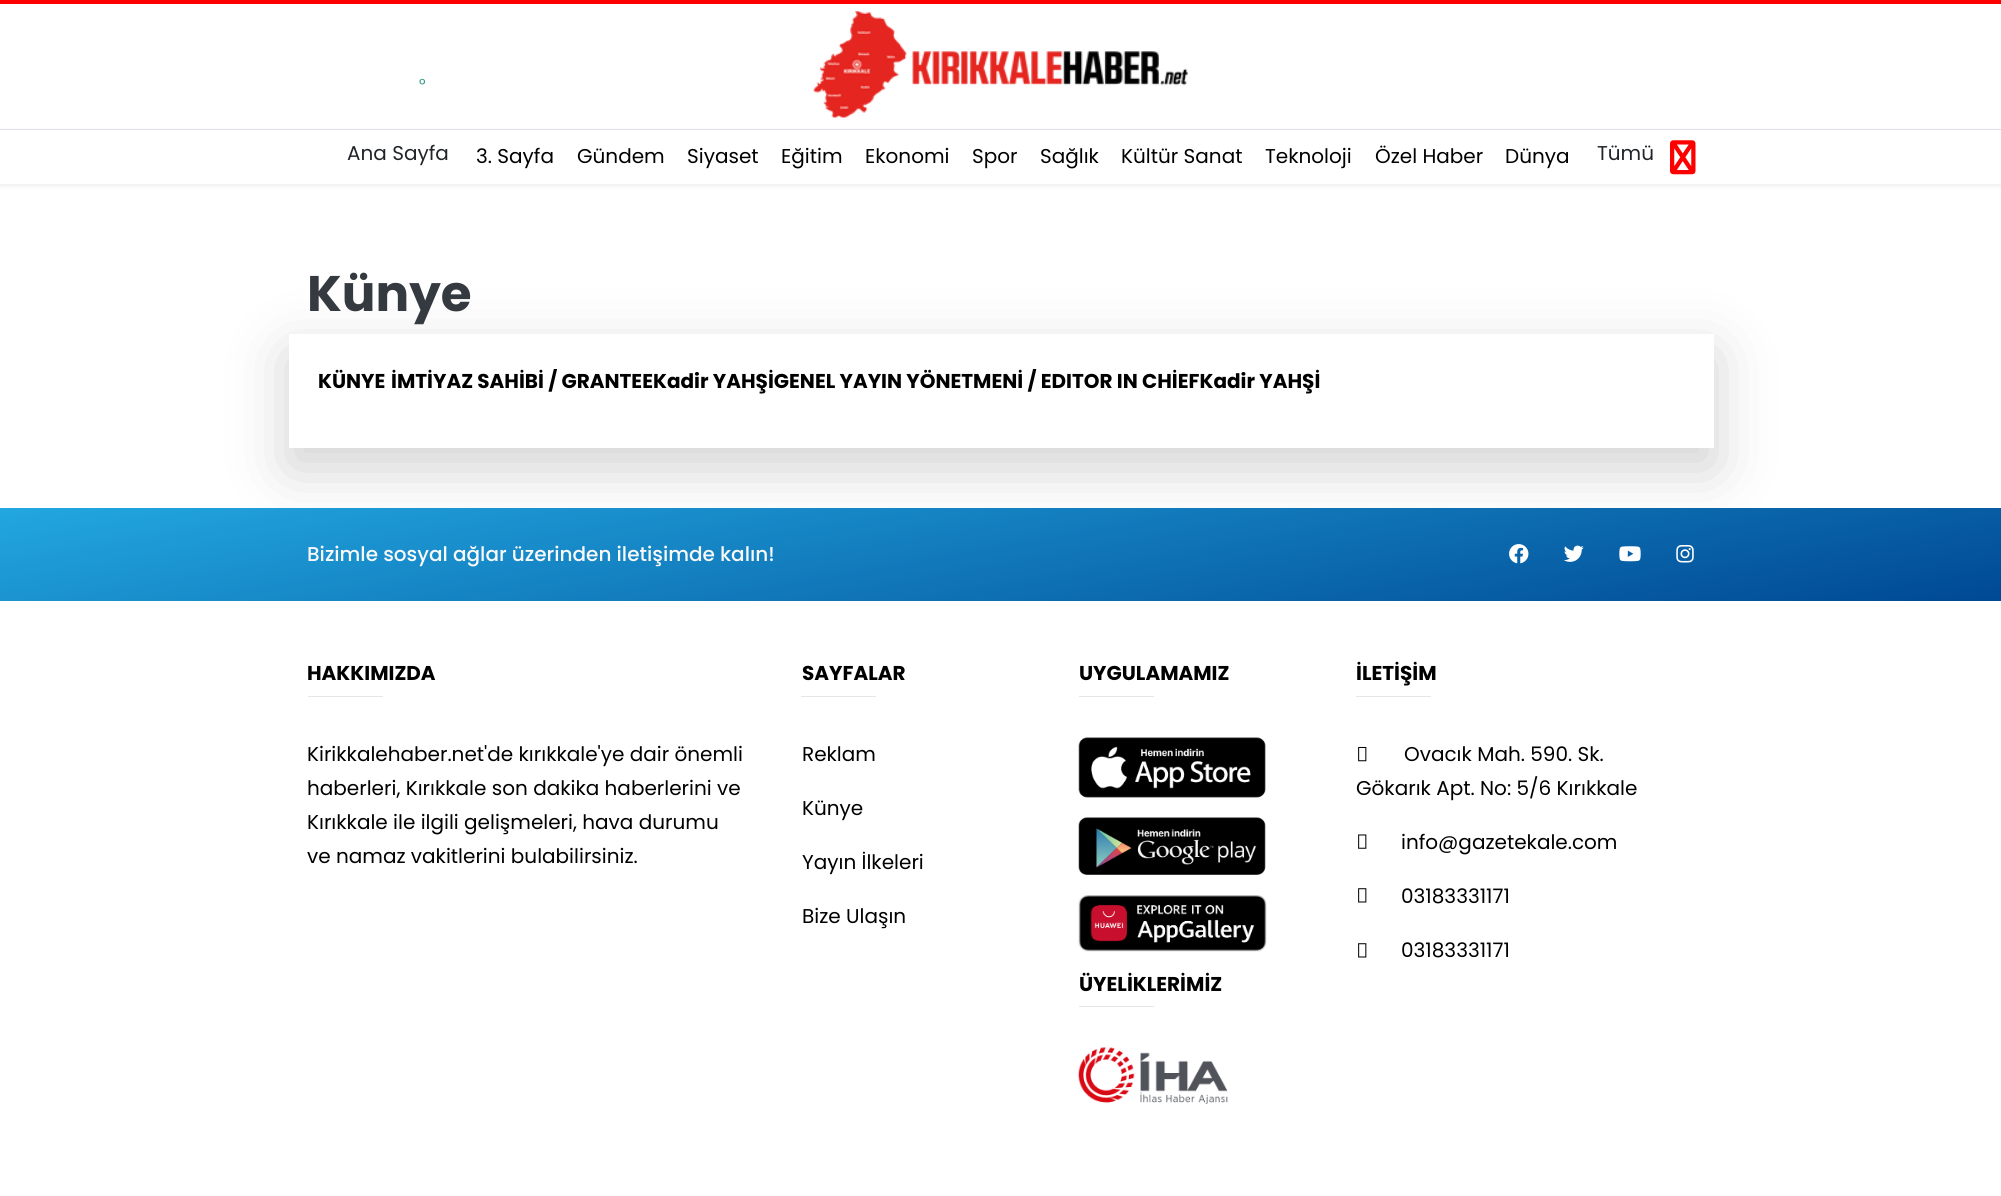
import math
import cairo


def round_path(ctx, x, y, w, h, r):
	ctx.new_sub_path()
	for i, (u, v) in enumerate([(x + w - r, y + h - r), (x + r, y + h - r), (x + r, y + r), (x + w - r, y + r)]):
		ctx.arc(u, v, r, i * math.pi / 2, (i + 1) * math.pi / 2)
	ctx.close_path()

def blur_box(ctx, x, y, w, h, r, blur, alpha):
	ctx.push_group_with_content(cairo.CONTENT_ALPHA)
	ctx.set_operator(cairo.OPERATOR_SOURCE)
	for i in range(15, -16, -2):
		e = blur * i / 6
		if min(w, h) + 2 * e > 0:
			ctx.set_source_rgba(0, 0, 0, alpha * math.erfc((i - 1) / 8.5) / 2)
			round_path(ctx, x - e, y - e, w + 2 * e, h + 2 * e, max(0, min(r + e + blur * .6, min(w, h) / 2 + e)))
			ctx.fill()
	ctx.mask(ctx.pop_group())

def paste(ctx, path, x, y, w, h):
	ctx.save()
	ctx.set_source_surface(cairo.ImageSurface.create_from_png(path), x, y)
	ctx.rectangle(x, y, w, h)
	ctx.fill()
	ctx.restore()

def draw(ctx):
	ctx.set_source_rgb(1, 1, 1)
	ctx.paint()
	ctx.set_source_rgb(1, 0, 0)
	ctx.rectangle(0, 0, 2001, 4)
	ctx.fill()
	ctx.select_font_face('Poppins')
	ctx.set_font_size(16)
	ctx.set_source_rgb(0.192, 0.584, 0.541)
	ctx.move_to(419, 90)
	ctx.show_text('°')
	paste(ctx, 'media/1.png', 813, 11, 375, 107)
	ctx.set_source_rgb(0, 0, 0)
	blur_box(ctx, 0, 131, 2001, 55, 0, 2.5, 0.07)
	ctx.set_source_rgb(1, 1, 1)
	ctx.rectangle(0, 130, 2001, 54)
	ctx.fill()
	ctx.set_source_rgb(0.871, 0.886, 0.902)
	ctx.rectangle(0, 129, 2001, 1)
	ctx.fill()
	ctx.set_font_size(20)
	ctx.set_source_rgb(0.129, 0.145, 0.161)
	ctx.move_to(347, 160)
	ctx.show_text('Ana Sayfa')
	ctx.set_source_rgb(0, 0, 0)
	for x, y, s in [
		(476, 163, '3. Sayfa'),
		(577, 163, 'Gündem'),
		(687, 163, 'Siyaset'),
		(781, 163, 'Eğitim'),
		(865, 163, 'Ekonomi'),
		(972, 163, 'Spor'),
		(1040, 163, 'Sağlık'),
		(1121, 163, 'Kültür Sanat'),
		(1265, 163, 'Teknoloji'),
		(1375, 163, 'Özel Haber'),
		(1505, 163, 'Dünya'),
	]:
		ctx.move_to(x, y)
		ctx.show_text(s)
	ctx.set_source_rgb(0.129, 0.145, 0.161)
	ctx.move_to(1597, 160)
	ctx.show_text('Tümü')
	paste(ctx, 'media/2.png', 1670, 140, 26, 35)
	ctx.save()
	ctx.set_fill_rule(cairo.FILL_RULE_EVEN_ODD)
	ctx.new_path()
	ctx.move_to(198, 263)
	ctx.line_to(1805, 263)
	ctx.line_to(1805, 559)
	ctx.line_to(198, 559)
	ctx.close_path()
	ctx.move_to(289, 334)
	ctx.line_to(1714, 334)
	ctx.line_to(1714, 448)
	ctx.line_to(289, 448)
	ctx.close_path()
	ctx.clip()
	ctx.set_source_rgb(0, 0, 0)
	blur_box(ctx, 289, 354, 1425, 114, 0, 30, 0.18)
	ctx.restore()
	ctx.select_font_face('Poppins', cairo.FONT_SLANT_NORMAL, cairo.FONT_WEIGHT_BOLD)
	ctx.set_font_size(50)
	ctx.set_source_rgb(0.204, 0.227, 0.251)
	ctx.move_to(307, 311)
	ctx.show_text('Künye')
	ctx.set_font_size(20)
	ctx.set_source_rgb(0, 0, 0)
	ctx.move_to(318, 388)
	ctx.show_text('KÜNYE')
	ctx.move_to(391, 388)
	ctx.show_text('İMTİYAZ SAHİBİ / GRANTEEKadir YAHŞİGENEL YAYIN YÖNETMENİ / EDITOR IN CHİEFKadir YAHŞİ')
	gradient = cairo.LinearGradient(1039, 771, 962, 338)
	gradient.add_color_stop_rgba(0, 0, 0.286, 0.58, 1)
	gradient.add_color_stop_rgba(1, 0.133, 0.655, 0.878, 1)
	ctx.set_source(gradient)
	ctx.rectangle(0, 508, 2001, 93)
	ctx.fill()
	ctx.select_font_face('Poppins Medium')
	ctx.set_source_rgb(0.973, 0.976, 0.98)
	ctx.move_to(307, 561)
	ctx.show_text('Bizimle sosyal ağlar üzerinden iletişimde kalın!')
	paste(ctx, 'media/3.png', 1509, 544, 20, 20)
	paste(ctx, 'media/4.png', 1564, 545, 20, 17)
	paste(ctx, 'media/5.png', 1619, 546, 22, 16)
	paste(ctx, 'media/6.png', 1676, 545, 18, 18)
	ctx.select_font_face('Poppins', cairo.FONT_SLANT_NORMAL, cairo.FONT_WEIGHT_BOLD)
	ctx.set_source_rgb(0, 0, 0)
	ctx.move_to(307, 680)
	ctx.show_text('HAKKIMIZDA')
	ctx.set_source_rgb(0.902, 0.902, 0.902)
	ctx.rectangle(308, 696, 75, 1)
	ctx.fill()
	ctx.select_font_face('Poppins')
	ctx.set_source_rgb(0, 0, 0)
	for x, y, s in [
		(307, 761, 'Kirikkalehaber.net\'de kırıkkale\'ye dair önemli'),
		(307, 795, 'haberleri, Kırıkkale son dakika haberlerini ve'),
		(307, 829, 'Kırıkkale ile ilgili gelişmeleri, hava durumu'),
		(307, 863, 've namaz vakitlerini bulabilirsiniz.'),
	]:
		ctx.move_to(x, y)
		ctx.show_text(s)
	ctx.select_font_face('Poppins', cairo.FONT_SLANT_NORMAL, cairo.FONT_WEIGHT_BOLD)
	ctx.move_to(802, 680)
	ctx.show_text('SAYFALAR')
	ctx.set_source_rgb(0.902, 0.902, 0.902)
	ctx.rectangle(801, 696, 75, 1)
	ctx.fill()
	ctx.select_font_face('Poppins')
	ctx.set_source_rgb(0, 0, 0)
	for x, y, s in [
		(802, 761, 'Reklam'),
		(802, 815, 'Künye'),
		(802, 869, 'Yayın İlkeleri'),
		(802, 923, 'Bize Ulaşın'),
	]:
		ctx.move_to(x, y)
		ctx.show_text(s)
	ctx.select_font_face('Poppins', cairo.FONT_SLANT_NORMAL, cairo.FONT_WEIGHT_BOLD)
	ctx.move_to(1079, 680)
	ctx.show_text('UYGULAMAMIZ')
	ctx.set_source_rgb(0.902, 0.902, 0.902)
	ctx.rectangle(1079, 696, 75, 1)
	ctx.fill()
	paste(ctx, 'media/7.png', 1078, 737, 188, 61)
	paste(ctx, 'media/8.png', 1078, 817, 188, 58)
	paste(ctx, 'media/9.png', 1078, 895, 189, 57)
	ctx.set_source_rgb(0, 0, 0)
	ctx.move_to(1079, 991)
	ctx.show_text('ÜYELİKLERİMİZ')
	ctx.set_source_rgb(0.902, 0.902, 0.902)
	ctx.rectangle(1079, 1006, 75, 1)
	ctx.fill()
	paste(ctx, 'media/10.png', 1078, 1047, 150, 57)
	ctx.set_source_rgb(0, 0, 0)
	ctx.move_to(1356, 680)
	ctx.show_text('İLETİŞİM')
	ctx.set_source_rgb(0.902, 0.902, 0.902)
	ctx.rectangle(1356, 696, 75, 1)
	ctx.fill()
	paste(ctx, 'media/11.png', 1358, 746, 9, 16)
	ctx.select_font_face('Poppins')
	ctx.set_source_rgb(0, 0, 0)
	ctx.move_to(1404, 761)
	ctx.show_text('Ovacık Mah. 590. Sk.')
	ctx.move_to(1356, 795)
	ctx.show_text('Gökarık Apt. No: 5/6 Kırıkkale')
	paste(ctx, 'media/12.png', 1358, 834, 9, 15)
	ctx.move_to(1401, 849)
	ctx.show_text('info@gazetekale.com')
	paste(ctx, 'media/13.png', 1358, 888, 9, 15)
	ctx.move_to(1401, 903)
	ctx.show_text('03183331171')
	paste(ctx, 'media/13.png', 1358, 943, 9, 15)
	ctx.move_to(1401, 957)
	ctx.show_text('03183331171')


surface = cairo.ImageSurface(cairo.FORMAT_RGB24, 2001, 1196)
ctx = cairo.Context(surface)
options = cairo.FontOptions()
options.set_hint_metrics(cairo.HINT_METRICS_OFF)
options.set_hint_style(cairo.HINT_STYLE_NONE)
ctx.set_font_options(options)
ctx.set_miter_limit(4)
draw(ctx)
surface.write_to_png('image.png')
